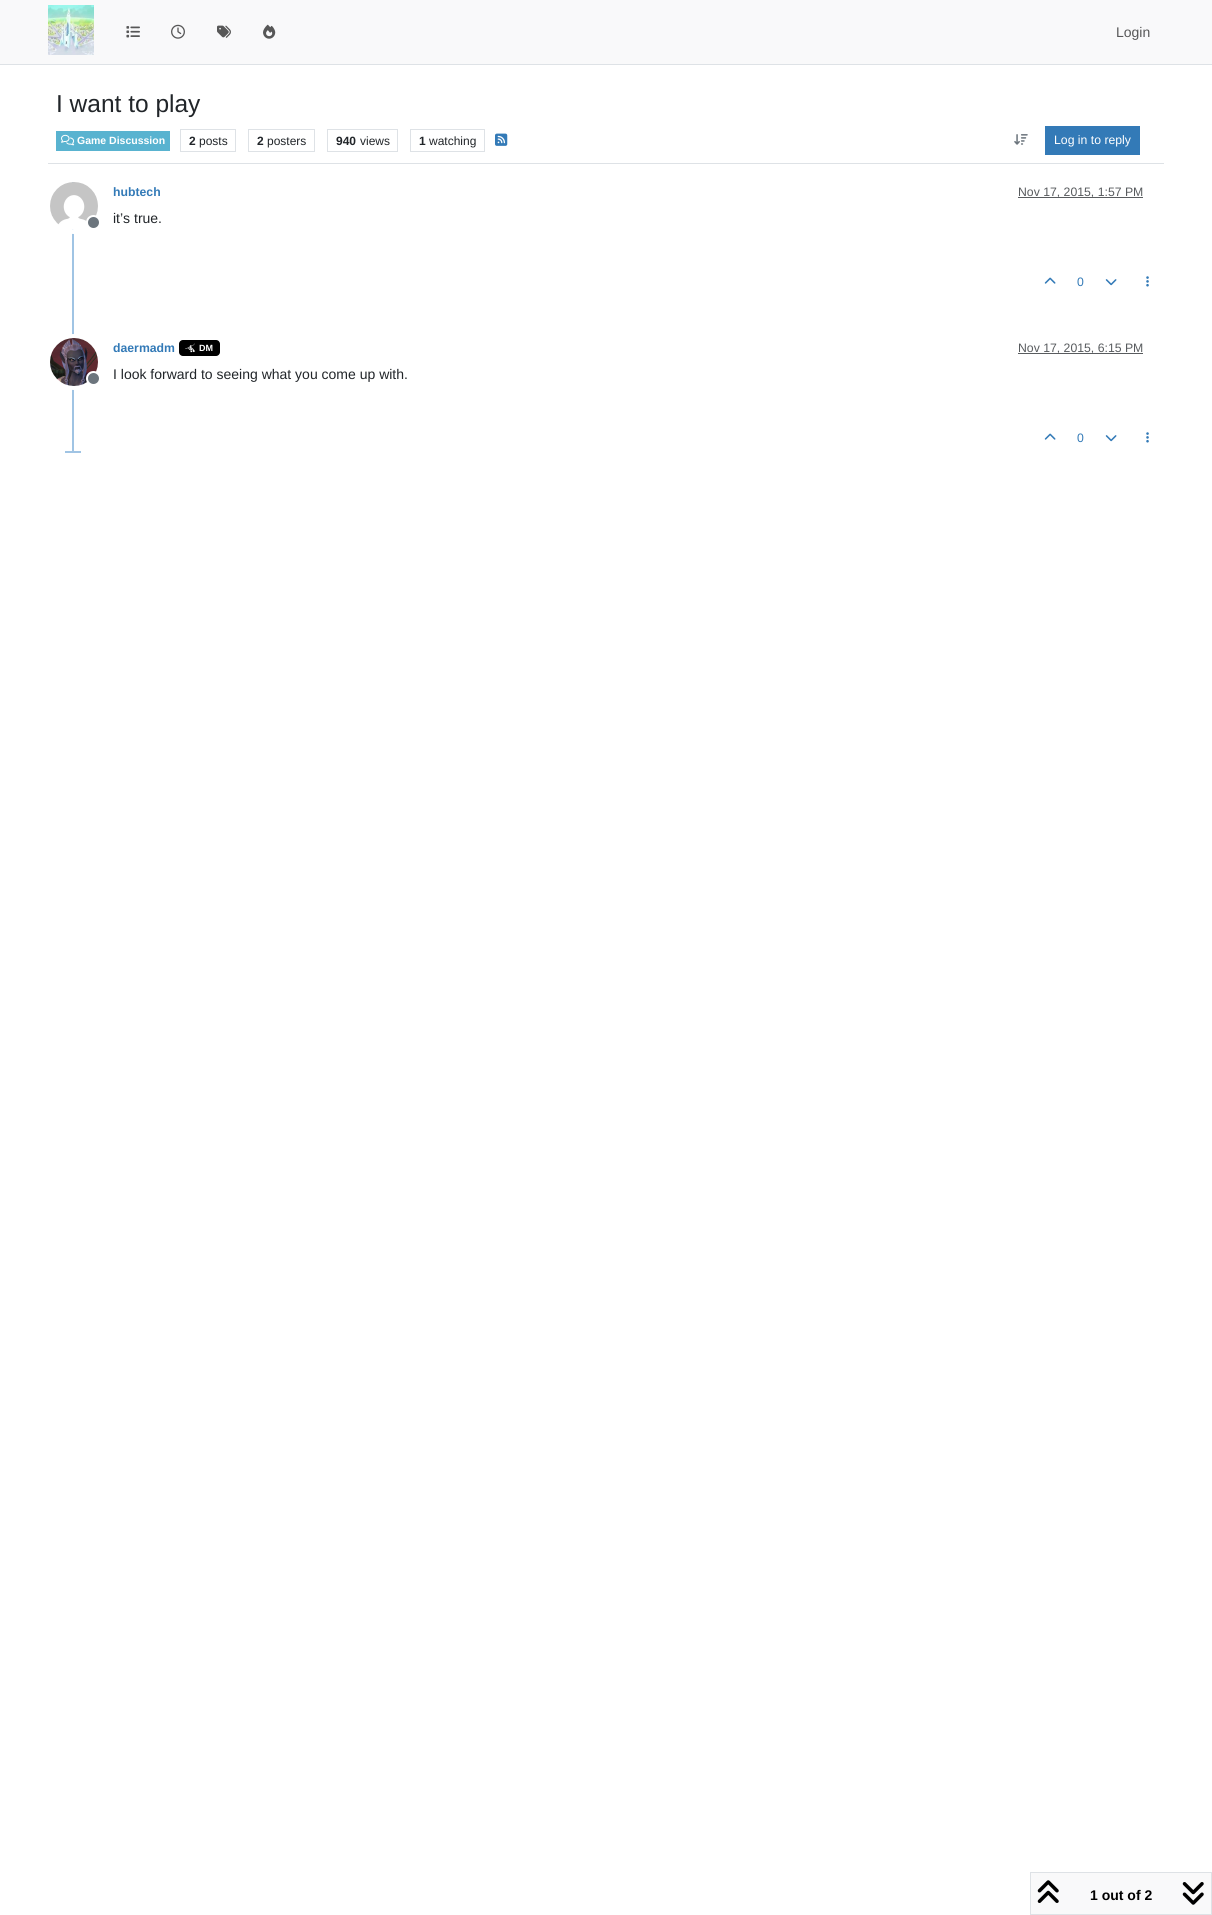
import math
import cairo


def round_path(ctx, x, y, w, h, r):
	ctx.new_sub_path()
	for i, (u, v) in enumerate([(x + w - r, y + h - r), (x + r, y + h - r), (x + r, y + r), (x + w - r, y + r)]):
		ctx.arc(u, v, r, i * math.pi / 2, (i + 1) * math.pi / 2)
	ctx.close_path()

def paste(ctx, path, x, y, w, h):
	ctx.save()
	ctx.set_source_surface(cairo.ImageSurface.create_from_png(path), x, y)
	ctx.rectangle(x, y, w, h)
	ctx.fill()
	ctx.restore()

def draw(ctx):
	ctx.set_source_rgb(1, 1, 1)
	ctx.paint()
	ctx.set_source_rgb(0.973, 0.976, 0.98)
	ctx.rectangle(0, 0, 1212, 64)
	ctx.fill()
	ctx.set_source_rgb(0.871, 0.886, 0.902)
	ctx.rectangle(0, 64, 1212, 1)
	ctx.fill()
	paste(ctx, 'media/1.png', 48, 5, 46, 50)
	paste(ctx, 'media/2.png', 126, 26, 14, 12)
	paste(ctx, 'media/3.png', 171, 24, 14, 15)
	paste(ctx, 'media/4.png', 217, 25, 14, 13)
	paste(ctx, 'media/5.png', 263, 24, 13, 15)
	ctx.select_font_face('Liberation Sans')
	ctx.set_font_size(14)
	ctx.set_source_rgb(0.341, 0.341, 0.345)
	ctx.move_to(1116, 37)
	ctx.show_text('Login')
	ctx.set_source_rgb(0.871, 0.886, 0.902)
	ctx.rectangle(48, 163, 1116, 1)
	ctx.fill()
	ctx.set_font_size(24.5)
	ctx.set_source_rgb(0.129, 0.145, 0.161)
	ctx.move_to(56, 112)
	ctx.show_text('I want to play')
	ctx.set_source_rgb(0.349, 0.702, 0.816)
	ctx.rectangle(56, 131, 114, 20)
	ctx.fill()
	paste(ctx, 'media/6.png', 61, 134, 14, 12)
	ctx.select_font_face('Liberation Sans', cairo.FONT_SLANT_NORMAL, cairo.FONT_WEIGHT_BOLD)
	ctx.set_font_size(10.5)
	ctx.set_source_rgb(1, 1, 1)
	ctx.move_to(77, 144)
	ctx.show_text('Game Discussion')
	ctx.rectangle(180.5, 129.5, 55, 22)
	ctx.set_source_rgb(0.871, 0.886, 0.902)
	ctx.set_line_width(1)
	ctx.stroke()
	ctx.set_font_size(12)
	ctx.set_source_rgb(0.129, 0.145, 0.161)
	ctx.move_to(189, 145)
	ctx.show_text('2')
	ctx.select_font_face('Liberation Sans')
	ctx.move_to(199, 145)
	ctx.show_text('posts')
	ctx.rectangle(248.5, 129.5, 66, 22)
	ctx.set_source_rgb(0.871, 0.886, 0.902)
	ctx.stroke()
	ctx.select_font_face('Liberation Sans', cairo.FONT_SLANT_NORMAL, cairo.FONT_WEIGHT_BOLD)
	ctx.set_source_rgb(0.129, 0.145, 0.161)
	ctx.move_to(257, 145)
	ctx.show_text('2')
	ctx.select_font_face('Liberation Sans')
	ctx.move_to(267, 145)
	ctx.show_text('posters')
	ctx.rectangle(327.5, 129.5, 70, 22)
	ctx.set_source_rgb(0.871, 0.886, 0.902)
	ctx.stroke()
	ctx.select_font_face('Liberation Sans', cairo.FONT_SLANT_NORMAL, cairo.FONT_WEIGHT_BOLD)
	ctx.set_source_rgb(0.129, 0.145, 0.161)
	ctx.move_to(336, 145)
	ctx.show_text('940')
	ctx.select_font_face('Liberation Sans')
	ctx.move_to(360, 145)
	ctx.show_text('views')
	ctx.rectangle(410.5, 129.5, 74, 22)
	ctx.set_source_rgb(0.871, 0.886, 0.902)
	ctx.stroke()
	ctx.select_font_face('Liberation Sans', cairo.FONT_SLANT_NORMAL, cairo.FONT_WEIGHT_BOLD)
	ctx.set_source_rgb(0.129, 0.145, 0.161)
	ctx.move_to(419, 145)
	ctx.show_text('1')
	ctx.select_font_face('Liberation Sans')
	ctx.move_to(429, 145)
	ctx.show_text('watching')
	paste(ctx, 'media/7.png', 495, 133, 13, 13)
	paste(ctx, 'media/8.png', 1014, 134, 14, 11)
	ctx.set_source_rgb(0.2, 0.478, 0.718)
	ctx.rectangle(1045, 126, 95, 29)
	ctx.fill()
	ctx.set_font_size(12.25)
	ctx.set_source_rgb(1, 1, 1)
	ctx.move_to(1054, 144)
	ctx.show_text('Log in to reply')
	ctx.set_source_rgb(0.627, 0.769, 0.894)
	ctx.rectangle(72, 180, 2, 273)
	ctx.fill()
	ctx.arc(74, 206, 26, 0, 2 * math.pi)
	ctx.set_source_rgb(1, 1, 1)
	ctx.set_line_width(4)
	ctx.stroke()
	paste(ctx, 'media/9.png', 50, 182, 48, 48)
	ctx.set_source_rgb(0.424, 0.459, 0.49)
	ctx.arc(93.5, 222.5, 6.5, 0, 2 * math.pi)
	ctx.fill_preserve()
	ctx.set_source_rgb(1, 1, 1)
	ctx.set_line_width(2)
	ctx.stroke()
	ctx.select_font_face('Liberation Sans', cairo.FONT_SLANT_NORMAL, cairo.FONT_WEIGHT_BOLD)
	ctx.set_source_rgb(0.2, 0.478, 0.718)
	ctx.move_to(113, 196)
	ctx.show_text('hubtech')
	ctx.set_source_rgb(0.349, 0.361, 0.373)
	ctx.rectangle(1018, 197, 125, 1)
	ctx.fill()
	ctx.select_font_face('Liberation Sans')
	ctx.set_source_rgb(0.345, 0.357, 0.369)
	ctx.move_to(1018, 196)
	ctx.show_text('Nov 17, 2015, 1:57 PM')
	ctx.set_font_size(14)
	ctx.set_source_rgb(0.129, 0.145, 0.161)
	ctx.move_to(113, 223)
	ctx.show_text('it’s true.')
	paste(ctx, 'media/10.png', 1044, 277, 12, 7)
	ctx.set_font_size(12.25)
	ctx.set_source_rgb(0.2, 0.478, 0.718)
	ctx.move_to(1077, 286)
	ctx.show_text('0')
	paste(ctx, 'media/11.png', 1105, 279, 12, 7)
	paste(ctx, 'media/12.png', 1146, 276, 3, 11)
	ctx.arc(74, 362, 26, 0, 2 * math.pi)
	ctx.set_source_rgb(1, 1, 1)
	ctx.set_line_width(4)
	ctx.stroke()
	paste(ctx, 'media/13.png', 50, 338, 48, 48)
	ctx.set_source_rgb(0.424, 0.459, 0.49)
	ctx.arc(93.5, 378.5, 6.5, 0, 2 * math.pi)
	ctx.fill_preserve()
	ctx.set_source_rgb(1, 1, 1)
	ctx.set_line_width(2)
	ctx.stroke()
	ctx.select_font_face('Liberation Sans', cairo.FONT_SLANT_NORMAL, cairo.FONT_WEIGHT_BOLD)
	ctx.set_source_rgb(0.2, 0.478, 0.718)
	ctx.move_to(113, 352)
	ctx.show_text('daermadm')
	ctx.set_source_rgb(0, 0, 0)
	round_path(ctx, 179, 340, 41, 16, 4)
	ctx.fill()
	paste(ctx, 'media/14.png', 185, 343, 11, 10)
	ctx.set_font_size(9)
	ctx.set_source_rgb(1, 1, 1)
	ctx.move_to(199, 351)
	ctx.show_text('DM')
	ctx.set_source_rgb(0.349, 0.361, 0.373)
	ctx.rectangle(1018, 353, 125, 1)
	ctx.fill()
	ctx.select_font_face('Liberation Sans')
	ctx.set_font_size(12.25)
	ctx.set_source_rgb(0.345, 0.357, 0.369)
	ctx.move_to(1018, 352)
	ctx.show_text('Nov 17, 2015, 6:15 PM')
	ctx.set_font_size(14)
	ctx.set_source_rgb(0.129, 0.145, 0.161)
	ctx.move_to(113, 379)
	ctx.show_text('I look forward to seeing what you come up with.')
	paste(ctx, 'media/10.png', 1044, 433, 12, 7)
	ctx.set_font_size(12.25)
	ctx.set_source_rgb(0.2, 0.478, 0.718)
	ctx.move_to(1077, 442)
	ctx.show_text('0')
	paste(ctx, 'media/11.png', 1105, 435, 12, 7)
	paste(ctx, 'media/12.png', 1146, 432, 3, 11)
	ctx.set_source_rgb(0.627, 0.769, 0.894)
	ctx.rectangle(65, 451, 16, 2)
	ctx.fill()
	ctx.set_source_rgb(0.973, 0.976, 0.98)
	ctx.rectangle(1030.5, 1872.5, 181, 42)
	ctx.fill_preserve()
	ctx.set_source_rgb(0.871, 0.886, 0.902)
	ctx.set_line_width(1)
	ctx.stroke()
	paste(ctx, 'media/15.png', 1037, 1880, 22, 23)
	ctx.select_font_face('Liberation Sans', cairo.FONT_SLANT_NORMAL, cairo.FONT_WEIGHT_BOLD)
	ctx.set_font_size(14)
	ctx.set_source_rgb(0, 0, 0)
	ctx.move_to(1090, 1900)
	ctx.show_text('1 out of 2')
	paste(ctx, 'media/16.png', 1182, 1882, 22, 23)


surface = cairo.ImageSurface(cairo.FORMAT_RGB24, 1212, 1915)
ctx = cairo.Context(surface)
options = cairo.FontOptions()
options.set_hint_metrics(cairo.HINT_METRICS_OFF)
options.set_hint_style(cairo.HINT_STYLE_NONE)
ctx.set_font_options(options)
ctx.set_miter_limit(4)
draw(ctx)
surface.write_to_png('image.png')
